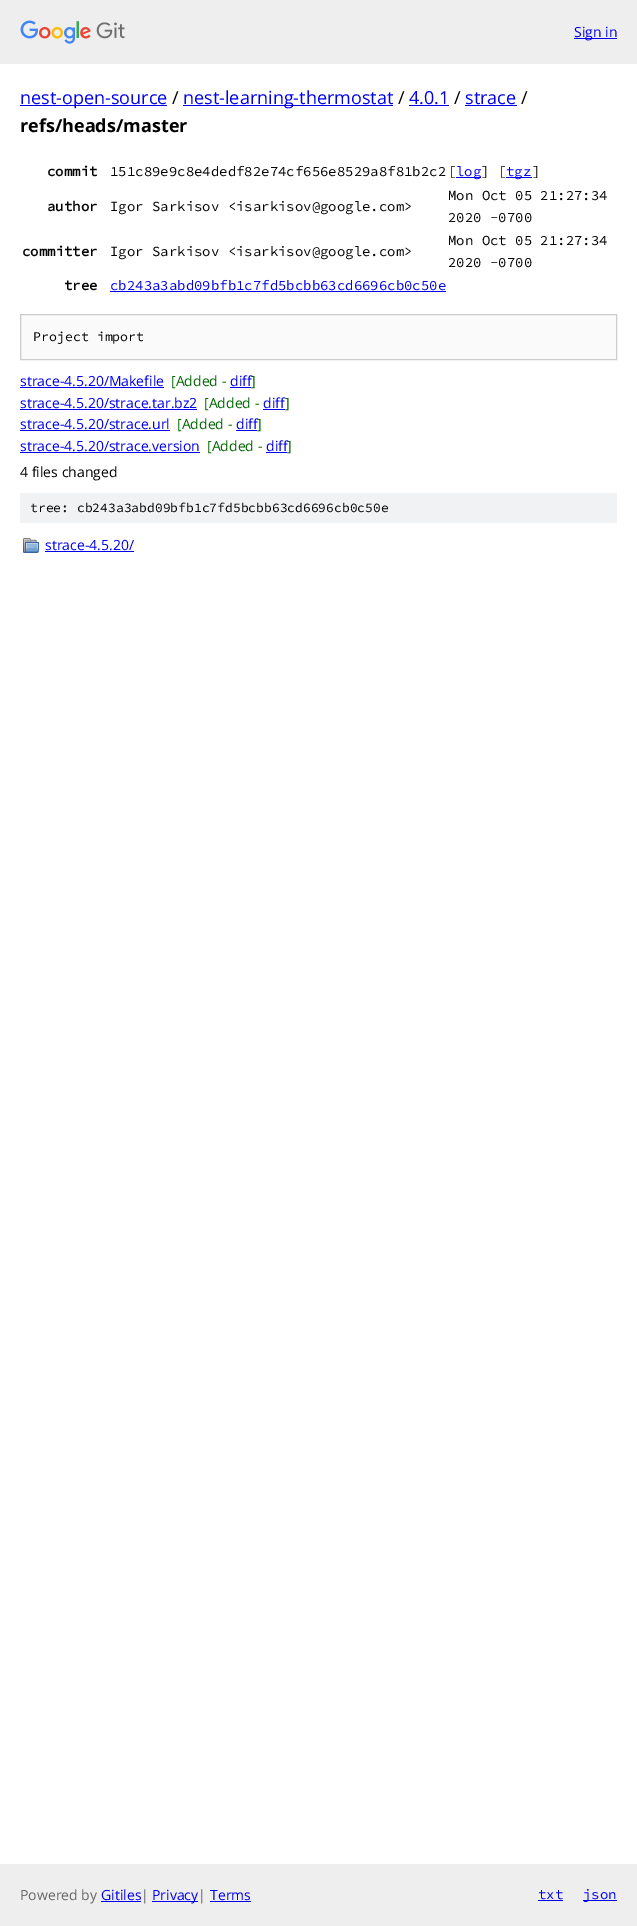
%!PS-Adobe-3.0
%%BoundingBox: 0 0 637 1926
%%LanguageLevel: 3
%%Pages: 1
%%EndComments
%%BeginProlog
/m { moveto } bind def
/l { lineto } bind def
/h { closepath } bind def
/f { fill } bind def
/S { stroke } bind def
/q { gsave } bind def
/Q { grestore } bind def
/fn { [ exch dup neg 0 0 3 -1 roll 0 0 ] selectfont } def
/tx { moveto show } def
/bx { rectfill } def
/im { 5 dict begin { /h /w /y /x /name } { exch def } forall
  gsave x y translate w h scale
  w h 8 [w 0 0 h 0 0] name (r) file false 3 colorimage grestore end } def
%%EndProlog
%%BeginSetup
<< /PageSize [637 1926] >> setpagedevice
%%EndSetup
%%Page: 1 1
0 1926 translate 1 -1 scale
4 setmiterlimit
1 setgray
0 0 637 1926 bx
0.933 setgray
0 0 637 64 bx
(image0.raw) 20 20 105 24 im
0 0 0.933 setrgbcolor
574 38 43 1 bx
/OpenSans-Regular 14 fn
(Sign in) 574 37 tx
20 105 147 1 bx
/OpenSans-Regular 18 fn
(nest-open-source) 20 104 tx
0 setgray
(/) 172 104 tx
0 0 0.933 setrgbcolor
183 105 210 1 bx
(nest-learning-thermostat) 183 104 tx
0 setgray
(/) 398 104 tx
0 0 0.933 setrgbcolor
(4.0.1) 409 104 tx
409 105 40 1 bx
0 setgray
(/) 454 104 tx
0 0 0.933 setrgbcolor
(strace) 465 104 tx
465 105 52 1 bx
0 setgray
(/) 521 104 tx
/OpenSans-Bold 18 fn
(refs/heads/master) 20 132 tx
/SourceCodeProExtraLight-Bold 14 fn
(commit) 47 176 tx
/SourceCodeProExtraLight-ExtraLight 14 fn
(151c89e9c8e4dedf82e74cf656e8529a8f81b2c2) 110 176 tx
([) 448 176 tx
0 0 0.933 setrgbcolor
456 177 25 1 bx
(log) 456 176 tx
0 setgray
(] [) 481 176 tx
0 0 0.933 setrgbcolor
506 177 26 1 bx
(tgz) 506 176 tx
0 setgray
(]) 532 176 tx
/SourceCodeProExtraLight-Bold 14 fn
(author) 47 211 tx
/SourceCodeProExtraLight-ExtraLight 14 fn
(Igor Sarkisov <isarkisov@google.com>) 110 211 tx
(Mon Oct 05 21:27:34) 448 200 tx
(2020 -0700) 448 222 tx
/SourceCodeProExtraLight-Bold 14 fn
(committer) 22 256 tx
/SourceCodeProExtraLight-ExtraLight 14 fn
(Igor Sarkisov <isarkisov@google.com>) 110 256 tx
(Mon Oct 05 21:27:34) 448 245 tx
(2020 -0700) 448 267 tx
/SourceCodeProExtraLight-Bold 14 fn
(tree) 64 290 tx
/SourceCodeProExtraLight-ExtraLight 14 fn
0 0 0.933 setrgbcolor
(cb243a3abd09bfb1c7fd5bcbb63cd6696cb0c50e) 110 290 tx
110 291 336 1 bx
0.98 setgray
20.5 314.5 m 616.5 314.5 l 616.5 359.5 l 20.5 359.5 l h q f Q
0.8 setgray
S
/SourceCodeProExtraLight-ExtraLight 13.25 fn
0 setgray
(Project import) 33 341 tx
/OpenSans-Regular 14 fn
0 0 0.933 setrgbcolor
(strace-4.5.20/Makefile) 20 386 tx
20 387 144 1 bx
0 0.4 0 setrgbcolor
([Added -) 171 386 tx
0 0 0.933 setrgbcolor
(diff) 230 386 tx
0 0.4 0 setrgbcolor
(]) 251 386 tx
0 0 0.933 setrgbcolor
230 387 21 1 bx
(strace-4.5.20/strace.tar.bz2) 20 408 tx
20 409 177 1 bx
0 0.4 0 setrgbcolor
([Added -) 204 408 tx
0 0 0.933 setrgbcolor
(diff) 263 408 tx
0 0.4 0 setrgbcolor
(]) 285 408 tx
0 0 0.933 setrgbcolor
263 409 22 1 bx
(strace-4.5.20/strace.url) 20 429 tx
20 430 150 1 bx
0 0.4 0 setrgbcolor
([Added -) 177 429 tx
0 0 0.933 setrgbcolor
(diff) 236 429 tx
0 0.4 0 setrgbcolor
(]) 257 429 tx
0 0 0.933 setrgbcolor
236 430 21 1 bx
(strace-4.5.20/strace.version) 20 451 tx
20 452 180 1 bx
0 0.4 0 setrgbcolor
([Added -) 207 451 tx
0 0 0.933 setrgbcolor
(diff) 266 451 tx
0 0.4 0 setrgbcolor
(]) 287 451 tx
0 0 0.933 setrgbcolor
266 452 21 1 bx
0 setgray
(4 files changed) 20 477 tx
0.945 0.949 0.953 setrgbcolor
20 493 597 30 bx
/SourceCodeProExtraLight-ExtraLight 13 fn
0 setgray
(tree: cb243a3abd09bfb1c7fd5bcbb63cd6696cb0c50e) 30 512 tx
(image1.raw) 23 538 16 15 im
/OpenSans-Regular 14 fn
0 0 0.933 setrgbcolor
(strace-4.5.20/) 45 550 tx
45 551 89 1 bx
0.933 setgray
0 1864 637 62 bx
0.4 setgray
(Powered by) 20 1900 tx
0 0 0.933 setrgbcolor
(Gitiles) 101 1900 tx
101 1901 40 1 bx
0.4 setgray
(|) 141 1900 tx
0 0 0.933 setrgbcolor
152 1901 46 1 bx
(Privacy) 152 1900 tx
0.4 setgray
(|) 198 1900 tx
0 0 0.933 setrgbcolor
(Terms) 210 1900 tx
210 1901 41 1 bx
/SourceCodeProExtraLight-ExtraLight 14 fn
(txt) 538 1899 tx
538 1900 25 1 bx
583 1900 34 1 bx
(json) 583 1899 tx
showpage
%%EOF
